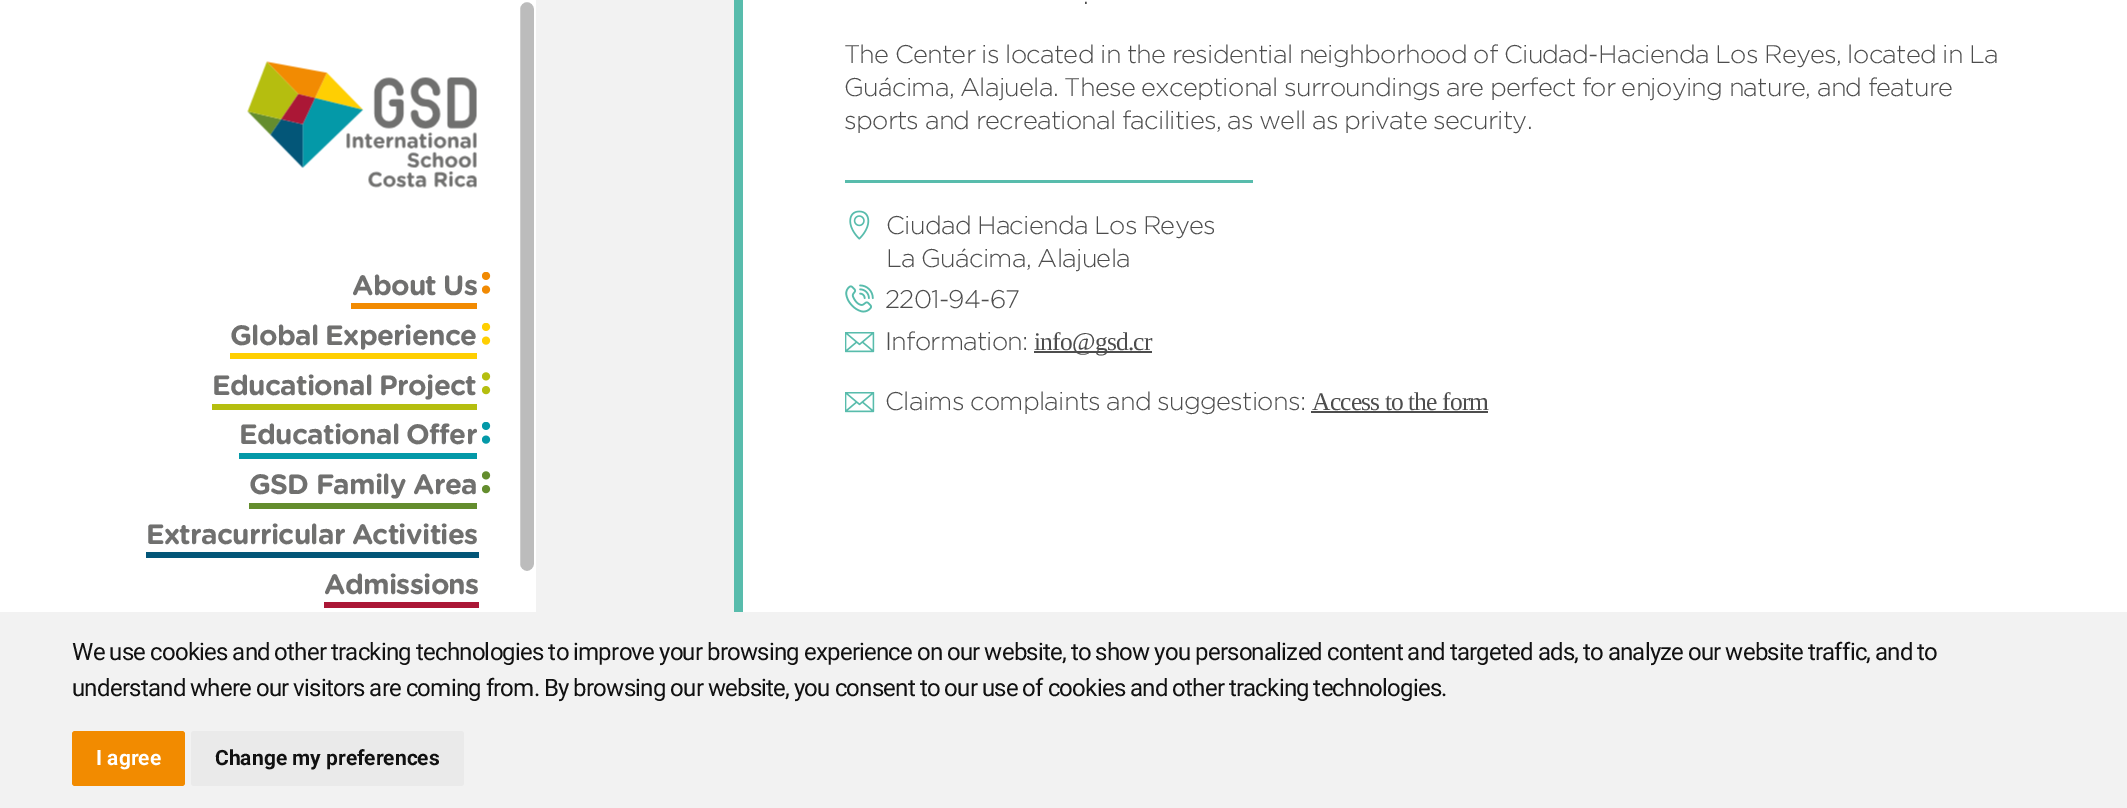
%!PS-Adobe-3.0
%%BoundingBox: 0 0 2127 808
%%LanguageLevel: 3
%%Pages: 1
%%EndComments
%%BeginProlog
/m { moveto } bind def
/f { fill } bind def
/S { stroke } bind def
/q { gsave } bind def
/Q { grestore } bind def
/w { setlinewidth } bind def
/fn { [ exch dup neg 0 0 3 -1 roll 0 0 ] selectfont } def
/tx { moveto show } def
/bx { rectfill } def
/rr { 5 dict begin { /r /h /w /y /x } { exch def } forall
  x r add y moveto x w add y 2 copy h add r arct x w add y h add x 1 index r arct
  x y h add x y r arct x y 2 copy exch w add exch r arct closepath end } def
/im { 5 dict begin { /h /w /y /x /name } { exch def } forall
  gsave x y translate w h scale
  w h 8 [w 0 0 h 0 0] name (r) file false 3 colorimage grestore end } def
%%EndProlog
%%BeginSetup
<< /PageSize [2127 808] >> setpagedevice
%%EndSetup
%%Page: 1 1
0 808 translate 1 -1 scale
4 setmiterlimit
1 setgray
0 0 2127 808 bx
0.737 setgray
519 1 16 571 8 rr q f Q
1 setgray
2 w
S
(image0.raw) 247 61 230 127 im
0.949 0.545 0.008 setrgbcolor
351 303 126 6 bx
/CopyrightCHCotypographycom-Regular 28 fn
0.439 0.439 0.435 setrgbcolor
352 295 m -0.5 0 32 -0.77 0 (About Us) awidthshow
(image1.raw) 482 272 9 22 im
1 0.812 0.008 setrgbcolor
230 353 247 6 bx
0.439 0.439 0.435 setrgbcolor
230 345 m -0.5 0 32 -0.77 0 (Global Experience) awidthshow
(image2.raw) 482 323 9 22 im
0.71 0.745 0.059 setrgbcolor
212 404 265 6 bx
0.439 0.439 0.435 setrgbcolor
212 395 m -0.5 0 32 -0.77 0 (Educational Project) awidthshow
(image3.raw) 482 372 9 23 im
0.016 0.6 0.659 setrgbcolor
239 453 238 6 bx
0.439 0.439 0.435 setrgbcolor
239 444 m -0.5 0 32 -0.77 0 (Educational Offer) awidthshow
(image4.raw) 482 422 9 22 im
0.392 0.553 0.18 setrgbcolor
249 503 228 6 bx
0.439 0.439 0.435 setrgbcolor
249 494 m -0.5 0 32 -0.77 0 (GSD Family Area) awidthshow
(image5.raw) 482 471 9 23 im
0.012 0.337 0.471 setrgbcolor
146 552 333 6 bx
0.439 0.439 0.435 setrgbcolor
146 544 m -0.5 0 32 -0.77 0 (Extracurricular Activities) awidthshow
0.671 0.09 0.212 setrgbcolor
324 602 155 6 bx
0.439 0.439 0.435 setrgbcolor
324 594 m -0.77 0 (Admissions) ashow
0.949 setgray
536 0 198 612 bx
0.345 0.737 0.675 setrgbcolor
734 0 9 612 bx
/CopyrightCHCotypographycom-Light 25.5 fn
0.302 setgray
1083 4 m -0.5 0 32 -0.77 0 (.) awidthshow
844 63 m -0.5 0 32 -0.77 0 (The Center is located in the residential neighborhood of Ciudad-Hacienda Los Reyes, located in La) awidthshow
844 96 m -0.5 0 32 -0.77 0 (Guácima, Alajuela. These exceptional surroundings are perfect for enjoying nature, and feature) awidthshow
844 129 m -0.5 0 32 -0.77 0 (sports and recreational facilities, as well as private security.) awidthshow
0.345 0.737 0.675 setrgbcolor
845 180 408 3 bx
(image6.raw) 849 210 21 30 im
0.302 setgray
886 234 m -0.5 0 32 -0.77 0 (Ciudad Hacienda Los Reyes) awidthshow
886 267 m -0.5 0 32 -0.77 0 (La Guácima, Alajuela) awidthshow
(image7.raw) 845 284 29 29 im
885 308 m -0.77 0 (2201-94-67) ashow
(image8.raw) 845 332 30 21 im
885 350 m -0.77 0 (Information:) ashow
1034 351 118 2 bx
/LiberationSerif-Regular 25.5 fn
1034 350 m -0.77 0 (info@gsd.cr) ashow
(image8.raw) 845 392 30 21 im
/CopyrightCHCotypographycom-Light 25.5 fn
885 410 m -0.5 0 32 -0.77 0 (Claims complaints and suggestions:) awidthshow
/LiberationSerif-Regular 25.5 fn
1312 410 m -0.5 0 32 -0.77 0 (Access to the form) awidthshow
1311 411 177 2 bx
0.949 setgray
0 612 2127 196 bx
/Roboto-Regular 24 fn
0.067 setgray
72 660 m -0.5 0 32 -0.77 0 (We use cookies and other tracking technologies to improve your browsing experience on our website, to show you personalized content and targeted ads, to analyze our website traffic, and to) awidthshow
72 696 m -0.5 0 32 -0.77 0 (understand where our visitors are coming from. By browsing our website, you consent to our use of cookies and other tracking technologies.) awidthshow
0.949 0.545 0 setrgbcolor
72 731 113 55 3 rr f
/Roboto-Bold 21 fn
1 setgray
(I agree) 96 765 tx
0.918 setgray
191 731 273 55 3 rr f
0.067 setgray
(Change my preferences) 215 765 tx
showpage
%%EOF
